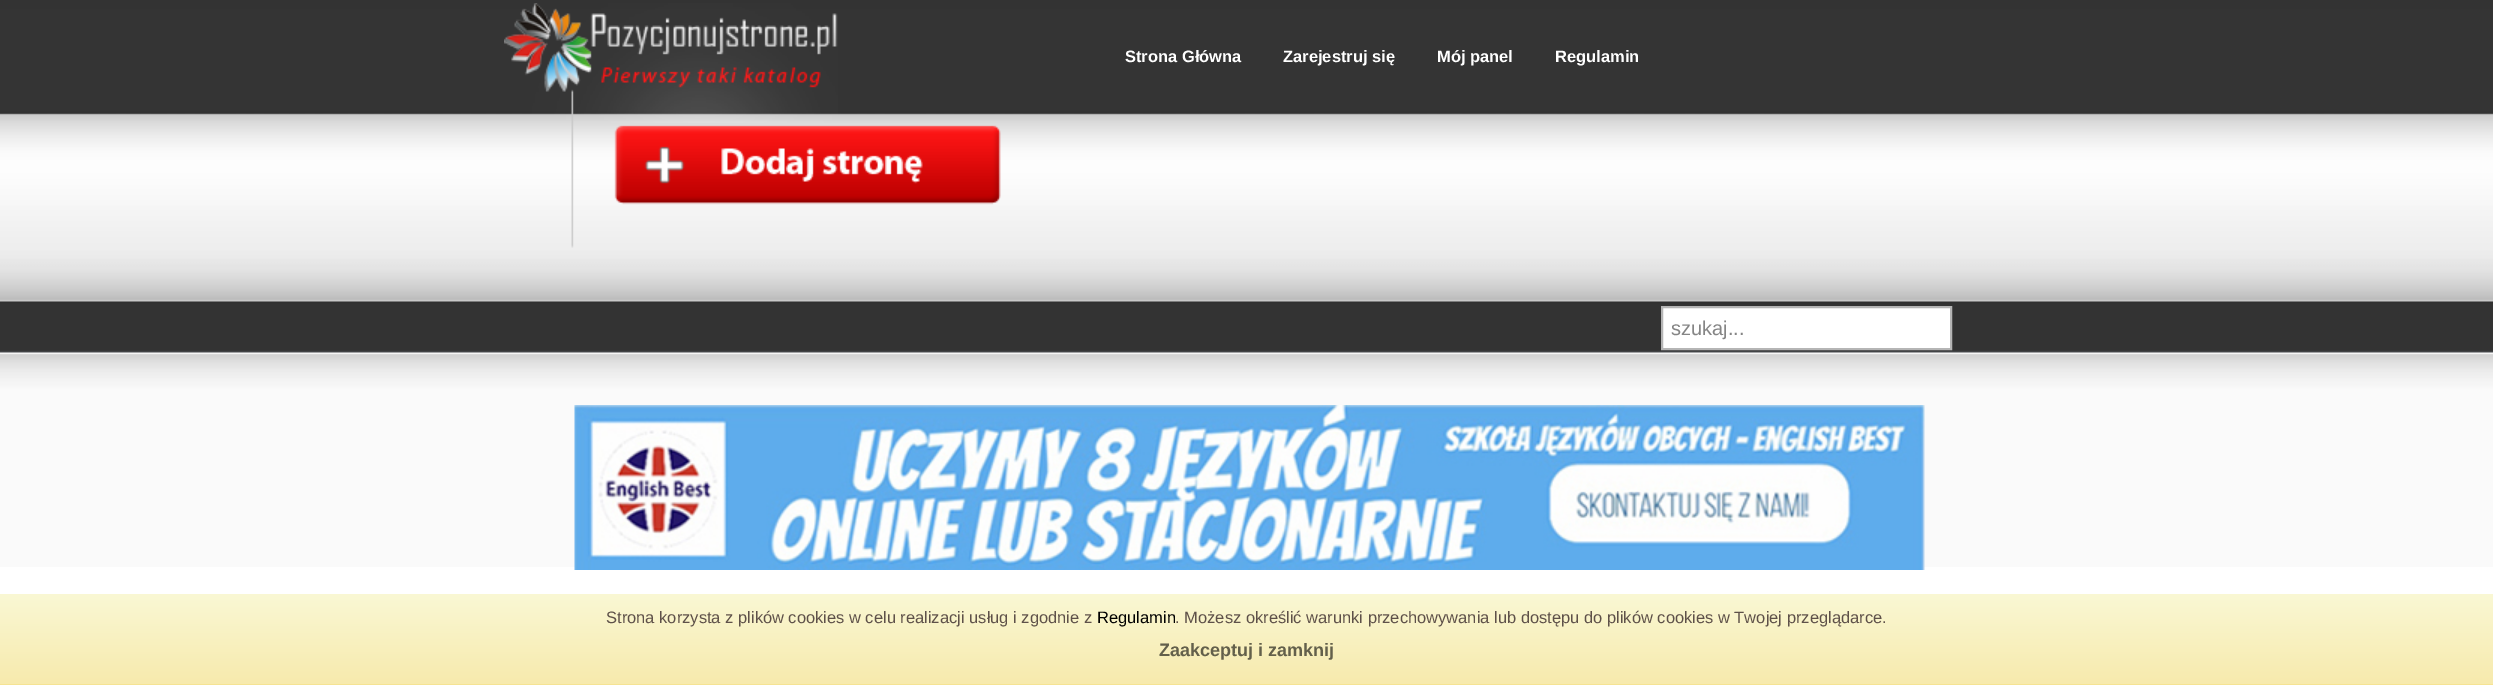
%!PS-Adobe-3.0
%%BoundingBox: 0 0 2493 685
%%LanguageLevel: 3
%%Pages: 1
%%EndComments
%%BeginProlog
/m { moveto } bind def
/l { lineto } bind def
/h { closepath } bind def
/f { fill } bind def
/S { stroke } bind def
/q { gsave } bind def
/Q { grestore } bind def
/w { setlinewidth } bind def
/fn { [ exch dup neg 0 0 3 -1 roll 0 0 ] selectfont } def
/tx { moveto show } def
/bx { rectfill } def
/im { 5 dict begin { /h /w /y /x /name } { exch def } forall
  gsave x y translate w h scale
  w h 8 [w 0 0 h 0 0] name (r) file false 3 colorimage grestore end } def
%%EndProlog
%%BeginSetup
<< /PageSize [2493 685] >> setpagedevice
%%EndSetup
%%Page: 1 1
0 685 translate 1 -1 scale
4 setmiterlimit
1 setgray
0 0 2493 685 bx
(image0.raw) 0 0 2493 567 im
/LiberationSans-Bold 16.5 fn
(Strona Główna) 1125 62 tx
(Zarejestruj się) 1283 62 tx
(Mój panel) 1437 62 tx
(Regulamin) 1555 62 tx
(image2.raw) 504 3 334 120 im
(image1.raw) 571 89 430 159 im
1662 307 m 1951 307 l 1951 349 l 1662 349 l h q f Q
0.71 setgray
2 w
S
/LiberationSans-Regular 20 fn
0.522 setgray
(szukaj...) 1671 335 tx
(image3.raw) 574 405 1351 165 im
q 0 594 m 2493 594 l 2493 684 l 0 684 l h clip newpath
<< /ShadingType 2 /ColorSpace /DeviceRGB /Coords [1247 594 1247 684] /Extend [true true] /Function << /FunctionType 2 /Domain [0 1] /C0 [0.98 0.973 0.831] /C1 [0.969 0.918 0.678] /N 1 >> >> shfill Q
0.961 0.89 0.576 setrgbcolor
0 684 2493 1 bx
/LiberationSans-Regular 16.5 fn
0.369 0.318 0.286 setrgbcolor
(Strona korzysta z plików cookies w celu realizacji usług i zgodnie z) 606 623 tx
0 setgray
(Regulamin) 1097 623 tx
0.369 0.318 0.286 setrgbcolor
(. Możesz określić warunki przechowywania lub dostępu do plików cookies w Twojej przeglądarce.) 1175 623 tx
/LiberationSans-Bold 18 fn
0.388 0.376 0.294 setrgbcolor
(Zaakceptuj i zamknij) 1159 656 tx
showpage
%%EOF
